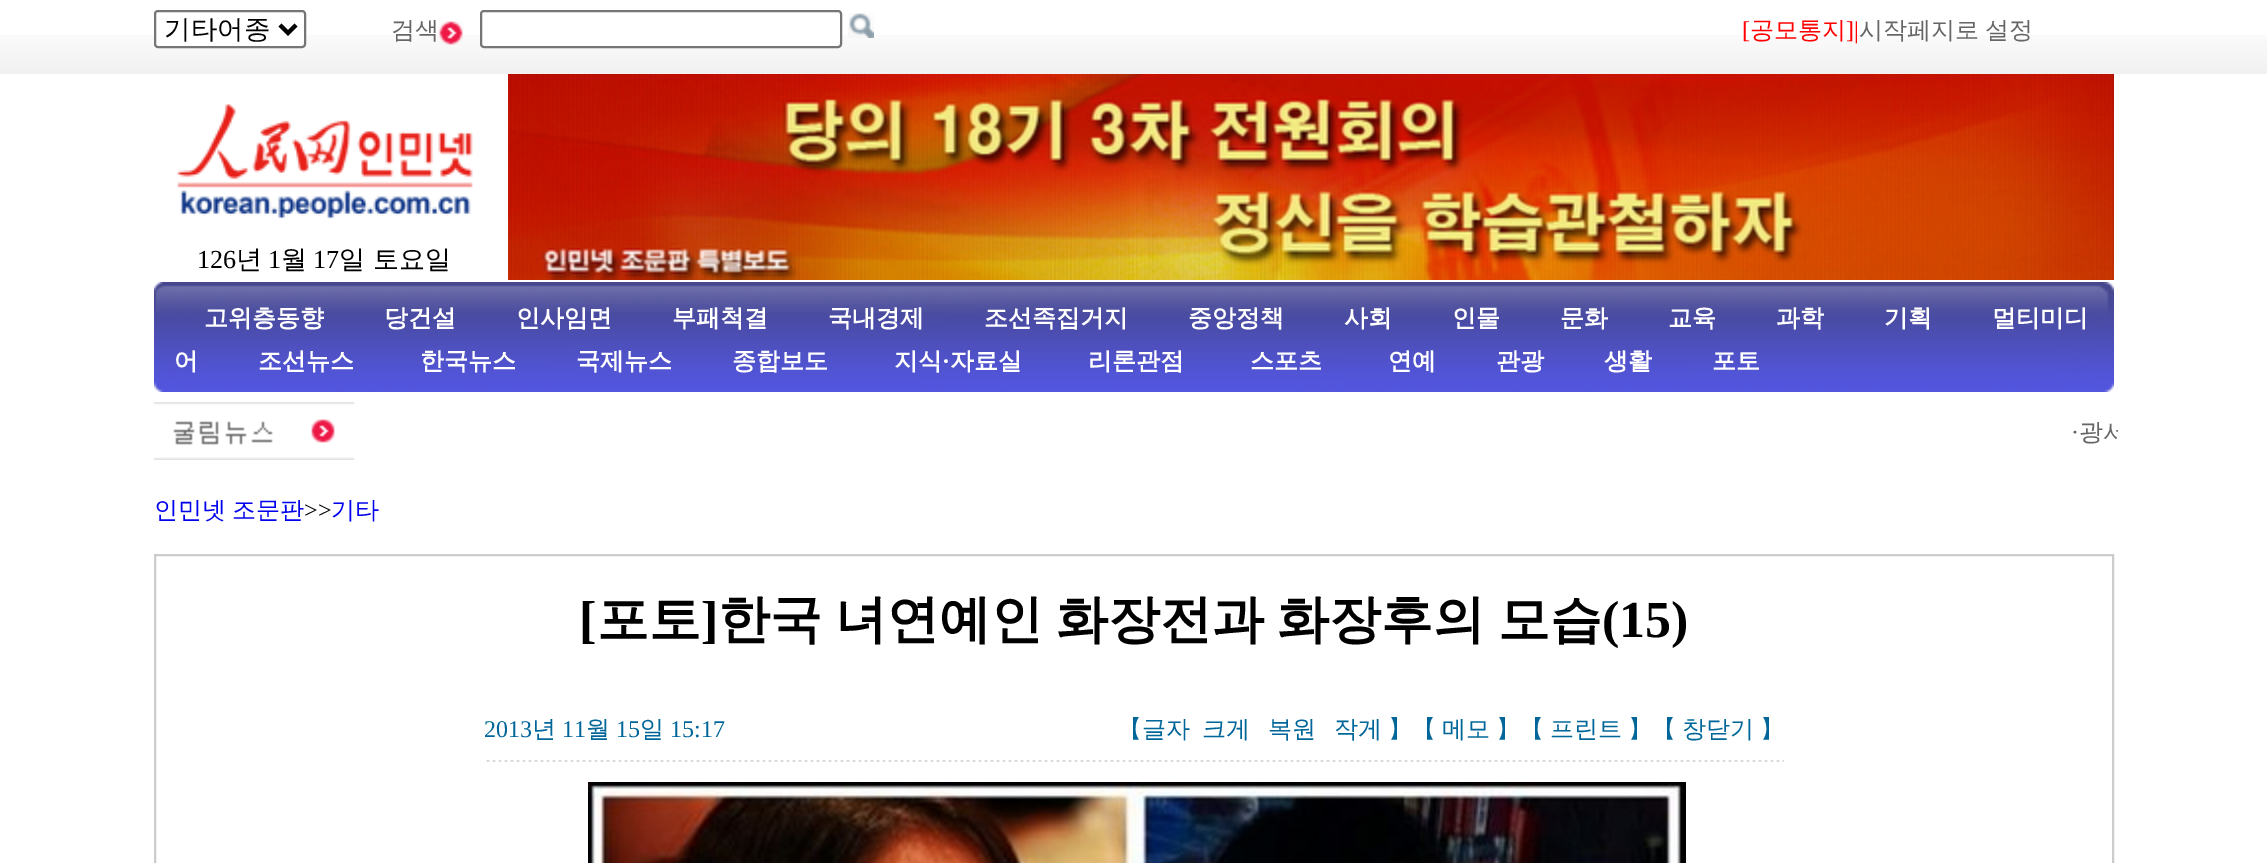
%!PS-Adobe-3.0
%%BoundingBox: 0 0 2267 863
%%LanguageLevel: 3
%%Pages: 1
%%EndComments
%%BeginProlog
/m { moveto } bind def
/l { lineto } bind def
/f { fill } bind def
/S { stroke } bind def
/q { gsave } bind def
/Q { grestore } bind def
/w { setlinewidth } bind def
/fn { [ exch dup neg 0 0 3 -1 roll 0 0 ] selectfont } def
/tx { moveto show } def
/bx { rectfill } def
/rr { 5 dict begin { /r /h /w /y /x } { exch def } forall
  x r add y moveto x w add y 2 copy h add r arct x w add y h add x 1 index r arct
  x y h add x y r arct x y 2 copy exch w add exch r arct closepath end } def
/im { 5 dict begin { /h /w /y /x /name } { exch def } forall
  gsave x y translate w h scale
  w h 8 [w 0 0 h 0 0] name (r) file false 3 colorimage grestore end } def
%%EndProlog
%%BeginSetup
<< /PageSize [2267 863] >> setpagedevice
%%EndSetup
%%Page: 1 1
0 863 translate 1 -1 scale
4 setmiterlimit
1 setgray
0 0 2267 863 bx
(image0.raw) 0 35 2267 39 im
155 11 150 36 3 rr q f Q
0.463 setgray
2 w
S
0 setgray
4 w
280 25 m 288 33 l 296 25 l S
/WenQuanYiZenHei-Medium 26.5 fn
(기타어종) 164 38 tx
/WenQuanYiZenHei-Medium 24 fn
0.4 setgray
(검색) 391 38 tx
(image1.raw) 438 21 26 24 im
1 setgray
481 11 360 36 3 rr q f Q
0.463 setgray
2 w
S
(image2.raw) 848 13 26 25 im
/LiberationSerif-Regular 24 fn
1 0 0 setrgbcolor
([) 1742 38 tx
/WenQuanYiZenHei-Medium 24 fn
(공모통지) 1750 38 tx
/LiberationSerif-Regular 24 fn
(]|) 1846 38 tx
/WenQuanYiZenHei-Medium 24 fn
0.4 setgray
1859 38 m -1 0 32 (시작페지로 설정) widthshow
(image3.raw) 177 104 296 115 im
/LiberationSerif-Regular 26 fn
0 setgray
(126) 197 268 tx
/WenQuanYiZenHei-Medium 26 fn
(년) 236 268 tx
/LiberationSerif-Regular 26 fn
(1) 268 268 tx
/WenQuanYiZenHei-Medium 26 fn
(월) 281 268 tx
/LiberationSerif-Regular 26 fn
(17) 313 268 tx
/WenQuanYiZenHei-Medium 26 fn
(일 토요일) 339 268 tx
(image4.raw) 508 74 1606 206 im
(image5.raw) 154 282 1960 110 im
/WenQuanYiZenHei-Bold 24 fn
1 setgray
(고위층동향) 204 326 tx
(당건설) 384 326 tx
(인사임면) 516 326 tx
(부패척결) 672 326 tx
(국내경제) 828 326 tx
(조선족집거지) 984 326 tx
(중앙정책) 1188 326 tx
(사회) 1344 326 tx
(인물) 1452 326 tx
(문화) 1560 326 tx
(교육) 1668 326 tx
(과학) 1776 326 tx
(기획) 1884 326 tx
(멀티미디) 1992 326 tx
(어) 174 369 tx
(조선뉴스) 258 369 tx
(한국뉴스) 420 369 tx
(국제뉴스) 576 369 tx
(종합보도) 732 369 tx
(지식) 894 369 tx
/LiberationSerif-Bold 24 fn
(·) 942 369 tx
/WenQuanYiZenHei-Bold 24 fn
(자료실) 950 369 tx
(리론관점) 1088 369 tx
(스포츠) 1250 369 tx
(연예) 1388 369 tx
(관광) 1496 369 tx
(생활) 1604 369 tx
(포토) 1712 369 tx
(image6.raw) 153 402 202 58 im
/LiberationSerif-Regular 24 fn
0.4 setgray
(·) 2071 440 tx
q
358 412 1760 58 rectclip
/WenQuanYiZenHei-Medium 24 fn
2079 440 m -1 0 32 (광서) widthshow
Q
/WenQuanYiZenHei-Medium 24 fn
0 0 0.933 setrgbcolor
154 518 m -1 0 32 (인민넷 조문판) widthshow
/LiberationSerif-Regular 24 fn
0 setgray
(>>) 304 518 tx
/WenQuanYiZenHei-Medium 24 fn
0 0 0.933 setrgbcolor
(기타) 331 518 tx
0.8 setgray
155 555 1958 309 rectstroke
/LiberationSerif-Bold 52 fn
0 setgray
([) 579 637 tx
/WenQuanYiZenHei-Bold 52 fn
(포토) 597 637 tx
/LiberationSerif-Bold 52 fn
(]) 701 637 tx
/WenQuanYiZenHei-Bold 52 fn
718 637 m -2.5 0 32 (한국 녀연예인 화장전과 화장후의 모습) widthshow
/LiberationSerif-Bold 52 fn
(\(15\)) 1602 637 tx
(image7.raw) 486 760 1298 2 im
/LiberationSerif-Regular 24 fn
0 0.4 0.6 setrgbcolor
(2013) 484 737 tx
/WenQuanYiZenHei-Medium 24 fn
(년) 532 737 tx
/LiberationSerif-Regular 24 fn
(11) 562 737 tx
/WenQuanYiZenHei-Medium 24 fn
(월) 586 737 tx
/LiberationSerif-Regular 24 fn
(15) 616 737 tx
/WenQuanYiZenHei-Medium 24 fn
(일) 640 737 tx
/LiberationSerif-Regular 24 fn
(15:17) 670 737 tx
/WenQuanYiZenHei-Medium 24 fn
(【글자) 1118 737 tx
(크게) 1202 737 tx
(복원) 1268 737 tx
(작게) 1334 737 tx
(】【) 1388 737 tx
(메모) 1442 737 tx
(】【) 1496 737 tx
(프린트) 1550 737 tx
(】【) 1628 737 tx
(창닫기) 1682 737 tx
(】) 1760 737 tx
(image8.raw) 588 782 1098 81 im
showpage
%%EOF
